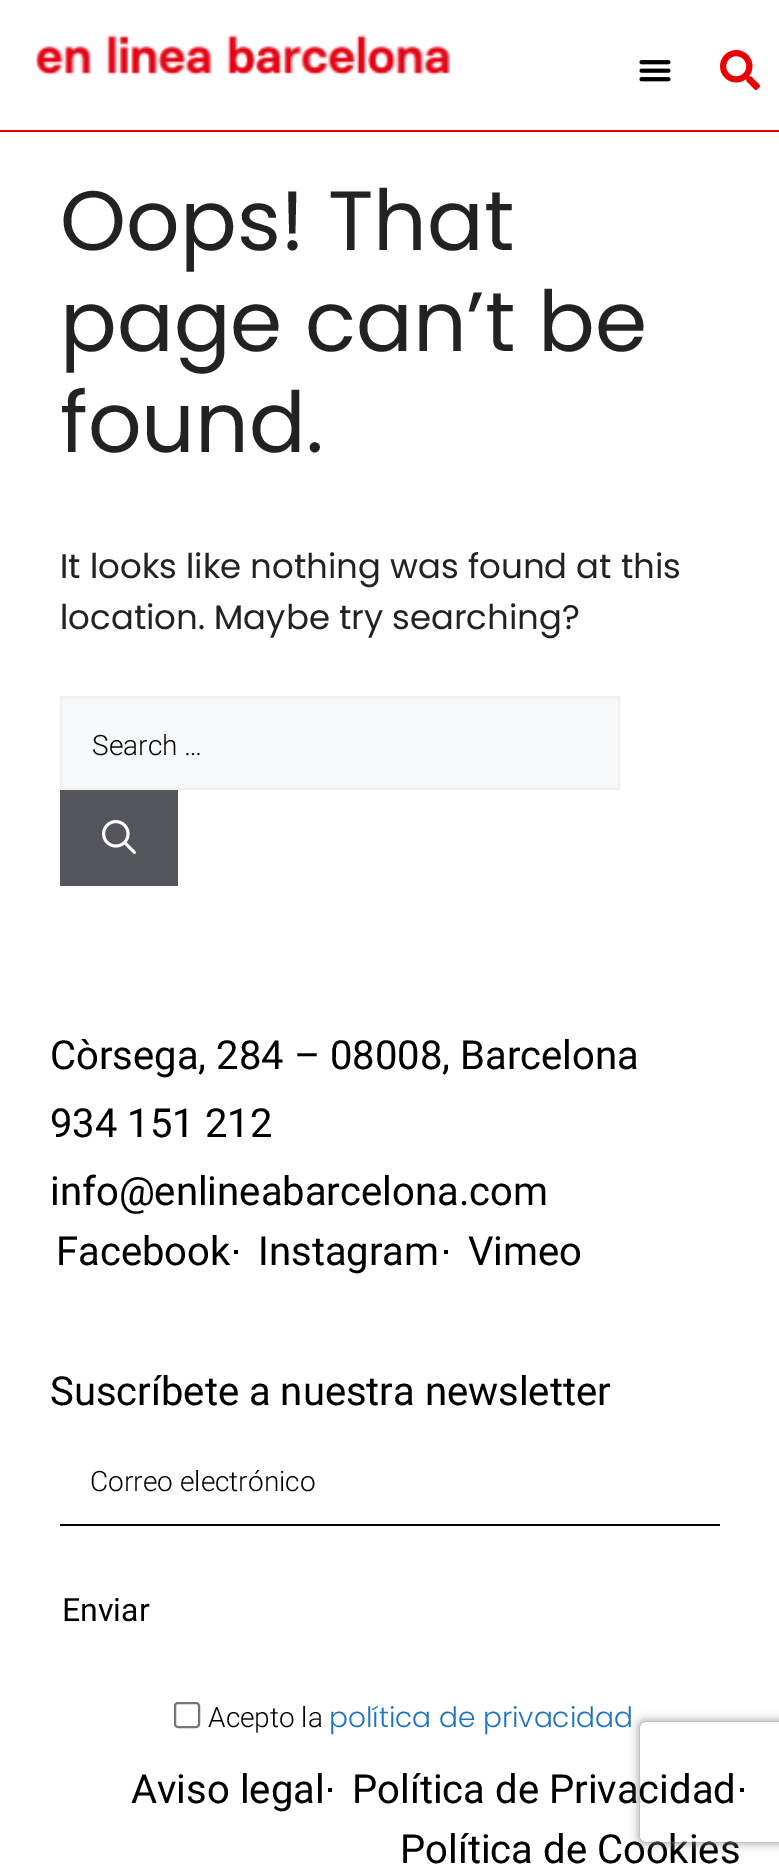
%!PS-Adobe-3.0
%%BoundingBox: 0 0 779 1869
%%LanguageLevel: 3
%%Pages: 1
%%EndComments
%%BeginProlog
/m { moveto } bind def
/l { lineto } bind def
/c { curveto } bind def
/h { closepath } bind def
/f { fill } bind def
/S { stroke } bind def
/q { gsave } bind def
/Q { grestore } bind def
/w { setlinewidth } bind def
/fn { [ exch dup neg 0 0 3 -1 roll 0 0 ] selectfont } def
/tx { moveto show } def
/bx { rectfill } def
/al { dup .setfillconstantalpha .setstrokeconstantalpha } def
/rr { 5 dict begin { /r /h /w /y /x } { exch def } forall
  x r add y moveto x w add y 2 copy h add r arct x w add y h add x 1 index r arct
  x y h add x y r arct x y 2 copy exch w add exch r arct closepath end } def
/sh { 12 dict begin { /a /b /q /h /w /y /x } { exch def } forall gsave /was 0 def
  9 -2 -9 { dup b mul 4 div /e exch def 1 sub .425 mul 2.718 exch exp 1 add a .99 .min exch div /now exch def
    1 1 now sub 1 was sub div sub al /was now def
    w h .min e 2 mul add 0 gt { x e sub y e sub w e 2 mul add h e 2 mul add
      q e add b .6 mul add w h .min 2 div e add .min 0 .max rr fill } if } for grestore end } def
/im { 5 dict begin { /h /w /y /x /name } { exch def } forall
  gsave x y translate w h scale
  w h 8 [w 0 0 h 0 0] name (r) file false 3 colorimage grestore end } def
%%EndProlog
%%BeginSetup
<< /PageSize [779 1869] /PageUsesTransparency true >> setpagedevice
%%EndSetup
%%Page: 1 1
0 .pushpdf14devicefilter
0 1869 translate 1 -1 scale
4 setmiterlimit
1 setgray
0 0 779 1869 bx
0.918 0 0 setrgbcolor
0 130 779 2 bx
(image0.raw) 35 34 415 42 im
(image1.raw) 639 60 32 22 im
(image2.raw) 720 50 40 40 im
/Poppins-Regular 84 fn
0.133 setgray
(Oops! That) 60 250 tx
(page can’t be) 60 351 tx
(found.) 60 452 tx
/Poppins-Regular 34 fn
(It looks like nothing was found at this) 60 578 tx
(location. Maybe try searching?) 60 629 tx
0.969 0.973 0.976 setrgbcolor
61 697 m 619 697 l 619 789 l 61 789 l h q f Q
0.941 setgray
2 w
S
/Roboto-Light 28 fn
0 setgray
(Search …) 92 755 tx
0.333 0.333 0.369 setrgbcolor
60 790 118 96 bx
(image3.raw) 102 820 34 34 im
/Roboto-Regular 40 fn
0 setgray
(Còrsega, 284 – 08008, Barcelona) 50 1069 tx
(934 151 212) 50 1137 tx
(info@enlineabarcelona.com) 50 1205 tx
(Facebook) 56 1265 tx
234 1250 4 4 bx
(Instagram) 258 1265 tx
444 1250 4 4 bx
(Vimeo) 468 1265 tx
(Suscríbete a nuestra newsletter) 50 1405 tx
60 1524 660 2 bx
/Roboto-Light 28 fn
(Correo electrónico) 90 1491 tx
/Roboto-Regular 32 fn
(Enviar) 62 1621 tx
0.463 setgray
175 1703 24 24 3 rr S
/Roboto-Light 28 fn
0 setgray
(Acepto la) 208 1727 tx
/Poppins-Light 28 fn
0.118 0.451 0.745 setrgbcolor
(política de privacidad) 329 1727 tx
/Roboto-Regular 40 fn
0 setgray
(Aviso legal) 131 1803 tx
328 1788 4 4 bx
(Política de Privacidad) 352 1803 tx
740 1788 4 4 bx
(Política de Cookies) 400 1863 tx
q
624 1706 m 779 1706 l 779 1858 l 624 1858 l h 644 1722 m 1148 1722 l 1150 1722 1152 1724 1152 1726 c 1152 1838 l 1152 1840 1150 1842 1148 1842 c 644 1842 l 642 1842 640 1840 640 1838 c 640 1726 l 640 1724 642 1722 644 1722 c h eoclip newpath
0.502 setgray
640 1722 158 120 4 5 1 sh
Q
.poppdf14devicefilter showpage
%%EOF
